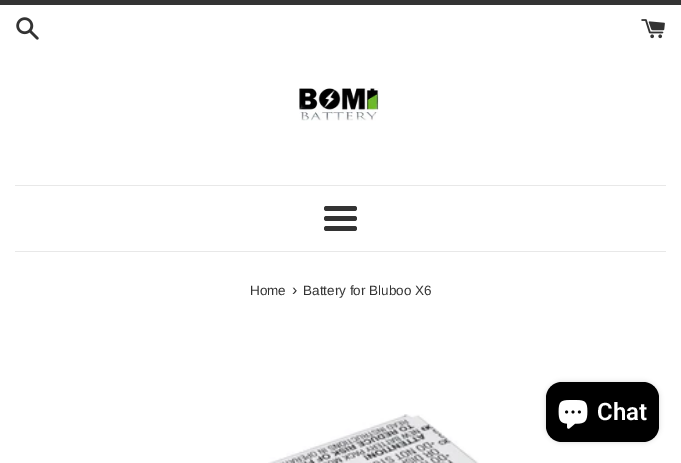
%!PS-Adobe-3.0
%%BoundingBox: 0 0 681 463
%%LanguageLevel: 3
%%Pages: 1
%%EndComments
%%BeginProlog
/f { fill } bind def
/fn { [ exch dup neg 0 0 3 -1 roll 0 0 ] selectfont } def
/tx { moveto show } def
/bx { rectfill } def
/al { dup .setfillconstantalpha .setstrokeconstantalpha } def
/rr { 5 dict begin { /r /h /w /y /x } { exch def } forall
  x r add y moveto x w add y 2 copy h add r arct x w add y h add x 1 index r arct
  x y h add x y r arct x y 2 copy exch w add exch r arct closepath end } def
/sh { 12 dict begin { /a /b /q /h /w /y /x } { exch def } forall gsave /was 0 def
  9 -2 -9 { dup b mul 4 div /e exch def 1 sub .425 mul 2.718 exch exp 1 add a .99 .min exch div /now exch def
    1 1 now sub 1 was sub div sub al /was now def
    w h .min e 2 mul add 0 gt { x e sub y e sub w e 2 mul add h e 2 mul add
      q e add b .6 mul add w h .min 2 div e add .min 0 .max rr fill } if } for grestore end } def
/im { 5 dict begin { /h /w /y /x /name } { exch def } forall
  gsave x y translate w h scale
  w h 8 [w 0 0 h 0 0] name (r) file false 3 colorimage grestore end } def
%%EndProlog
%%BeginSetup
<< /PageSize [681 463] /PageUsesTransparency true >> setpagedevice
%%EndSetup
%%Page: 1 1
0 .pushpdf14devicefilter
0 463 translate 1 -1 scale
4 setmiterlimit
1 setgray
0 0 681 463 bx
0.2 setgray
0 0 681 5 bx
(image0.raw) 16 17 23 23 im
(image1.raw) 641 19 24 20 im
(image2.raw) 299 88 80 33 im
0.91 setgray
15 185 651 1 bx
0.2 setgray
324 206 33 5 2.5 rr f
324 216 33 5 2.5 rr f
324 226 33 5 2.5 rr f
0.91 setgray
15 251 651 1 bx
/LiberationSans-Regular 13.5 fn
0.2 setgray
(Home) 250 295 tx
/LiberationSans-Regular 16 fn
(›) 292 295 tx
/LiberationSans-Regular 13.5 fn
(Battery for Bluboo X6) 303 295 tx
(image3.raw) 268 414 211 49 im
0 setgray
546 382 113 60 16 2.5 0.15 sh
546 382 113 60 16 rr f
(image4.raw) 558 400 30 29 im
/Roboto-SemiBold 24 fn
1 setgray
(Chat) 597 420 tx
.poppdf14devicefilter showpage
%%EOF
